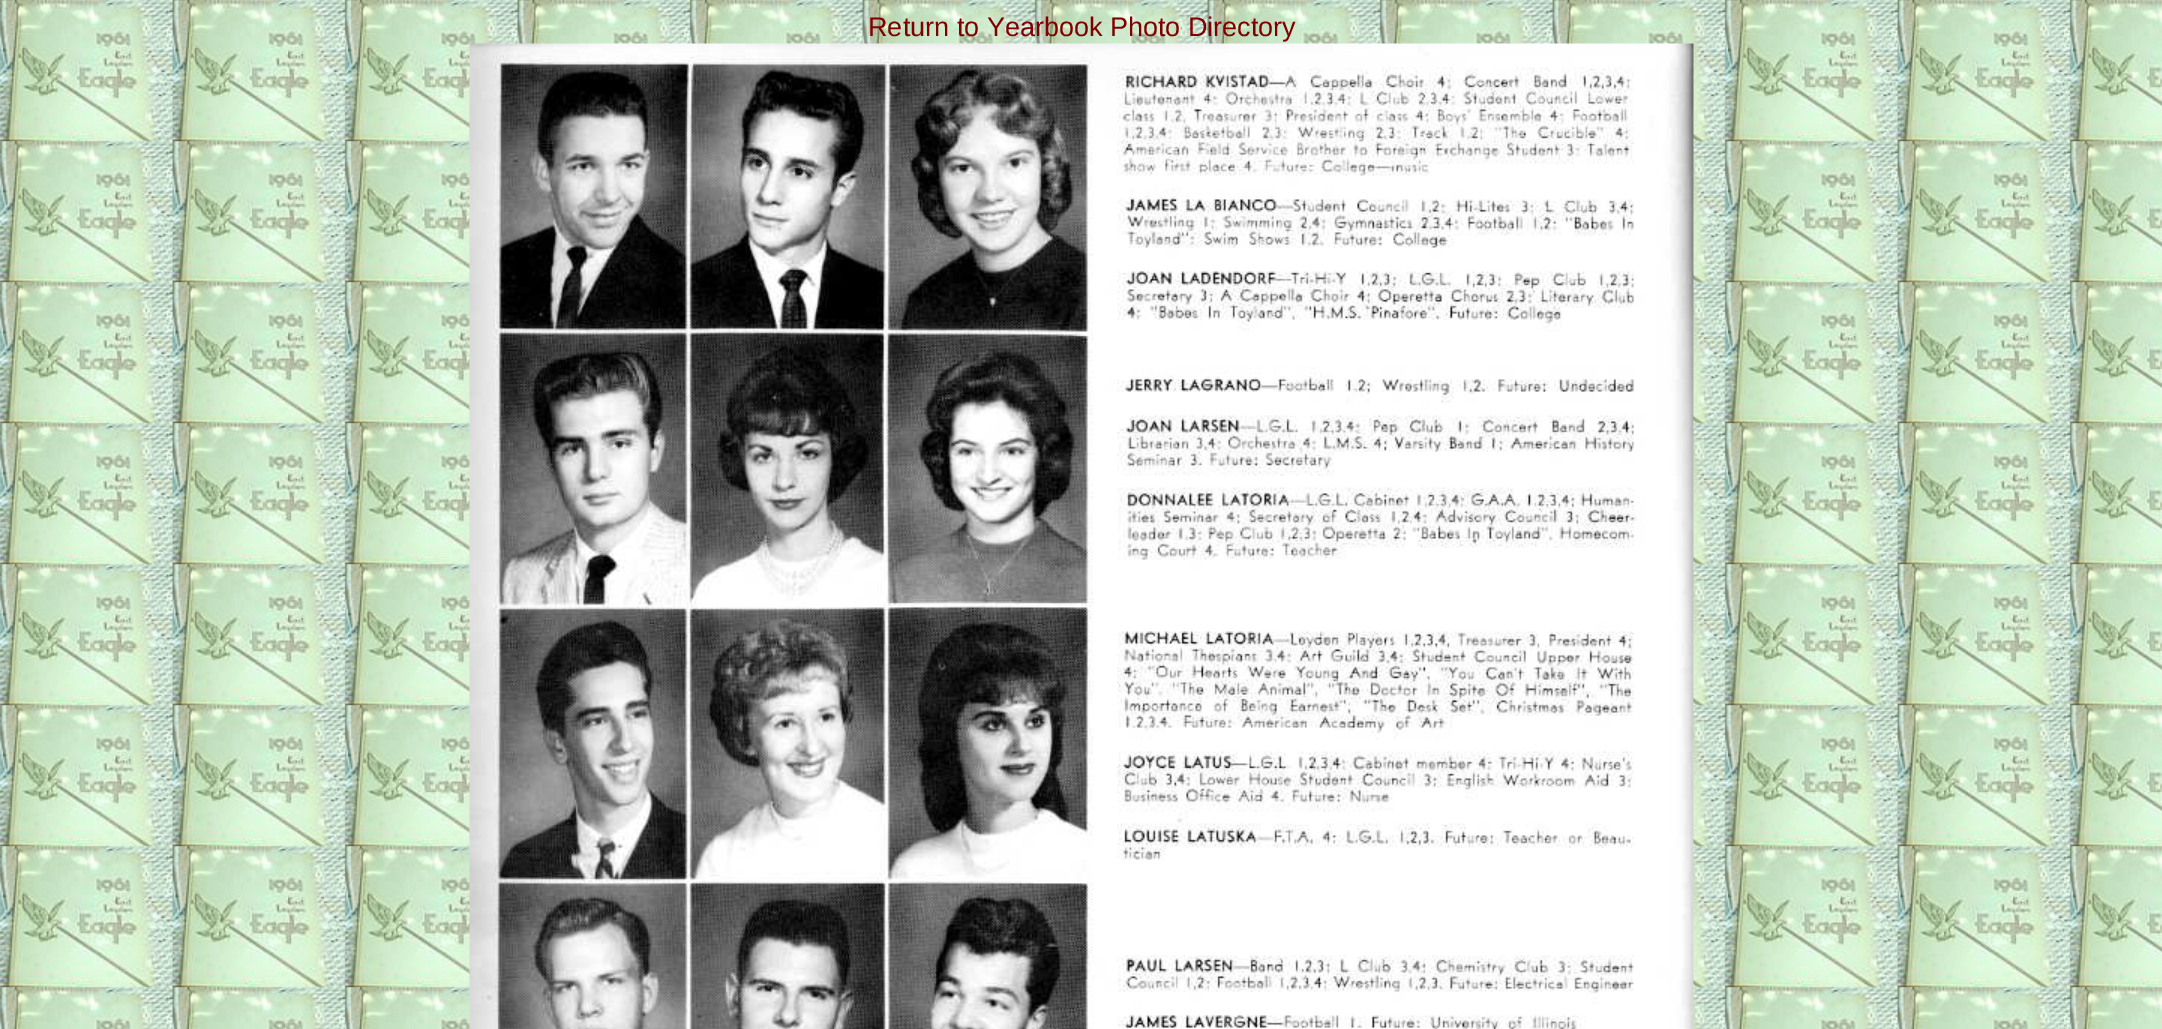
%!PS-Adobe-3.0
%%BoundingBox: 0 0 2162 1029
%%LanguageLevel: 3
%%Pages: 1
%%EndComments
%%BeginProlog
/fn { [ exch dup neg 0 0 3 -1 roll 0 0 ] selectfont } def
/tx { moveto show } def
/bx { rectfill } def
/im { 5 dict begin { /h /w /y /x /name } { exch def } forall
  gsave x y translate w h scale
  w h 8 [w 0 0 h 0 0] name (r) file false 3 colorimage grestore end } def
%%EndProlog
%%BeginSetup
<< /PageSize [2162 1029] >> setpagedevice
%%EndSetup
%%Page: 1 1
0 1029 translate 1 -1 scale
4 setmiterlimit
1 setgray
0 0 2162 1029 bx
(image0.raw) 0 0 2162 1029 im
/LiberationSans-Regular 27 fn
0.502 0 0 setrgbcolor
(Return to Yearbook Photo Directory) 868 36 tx
(image1.raw) 469 43 1225 986 im
showpage
%%EOF
